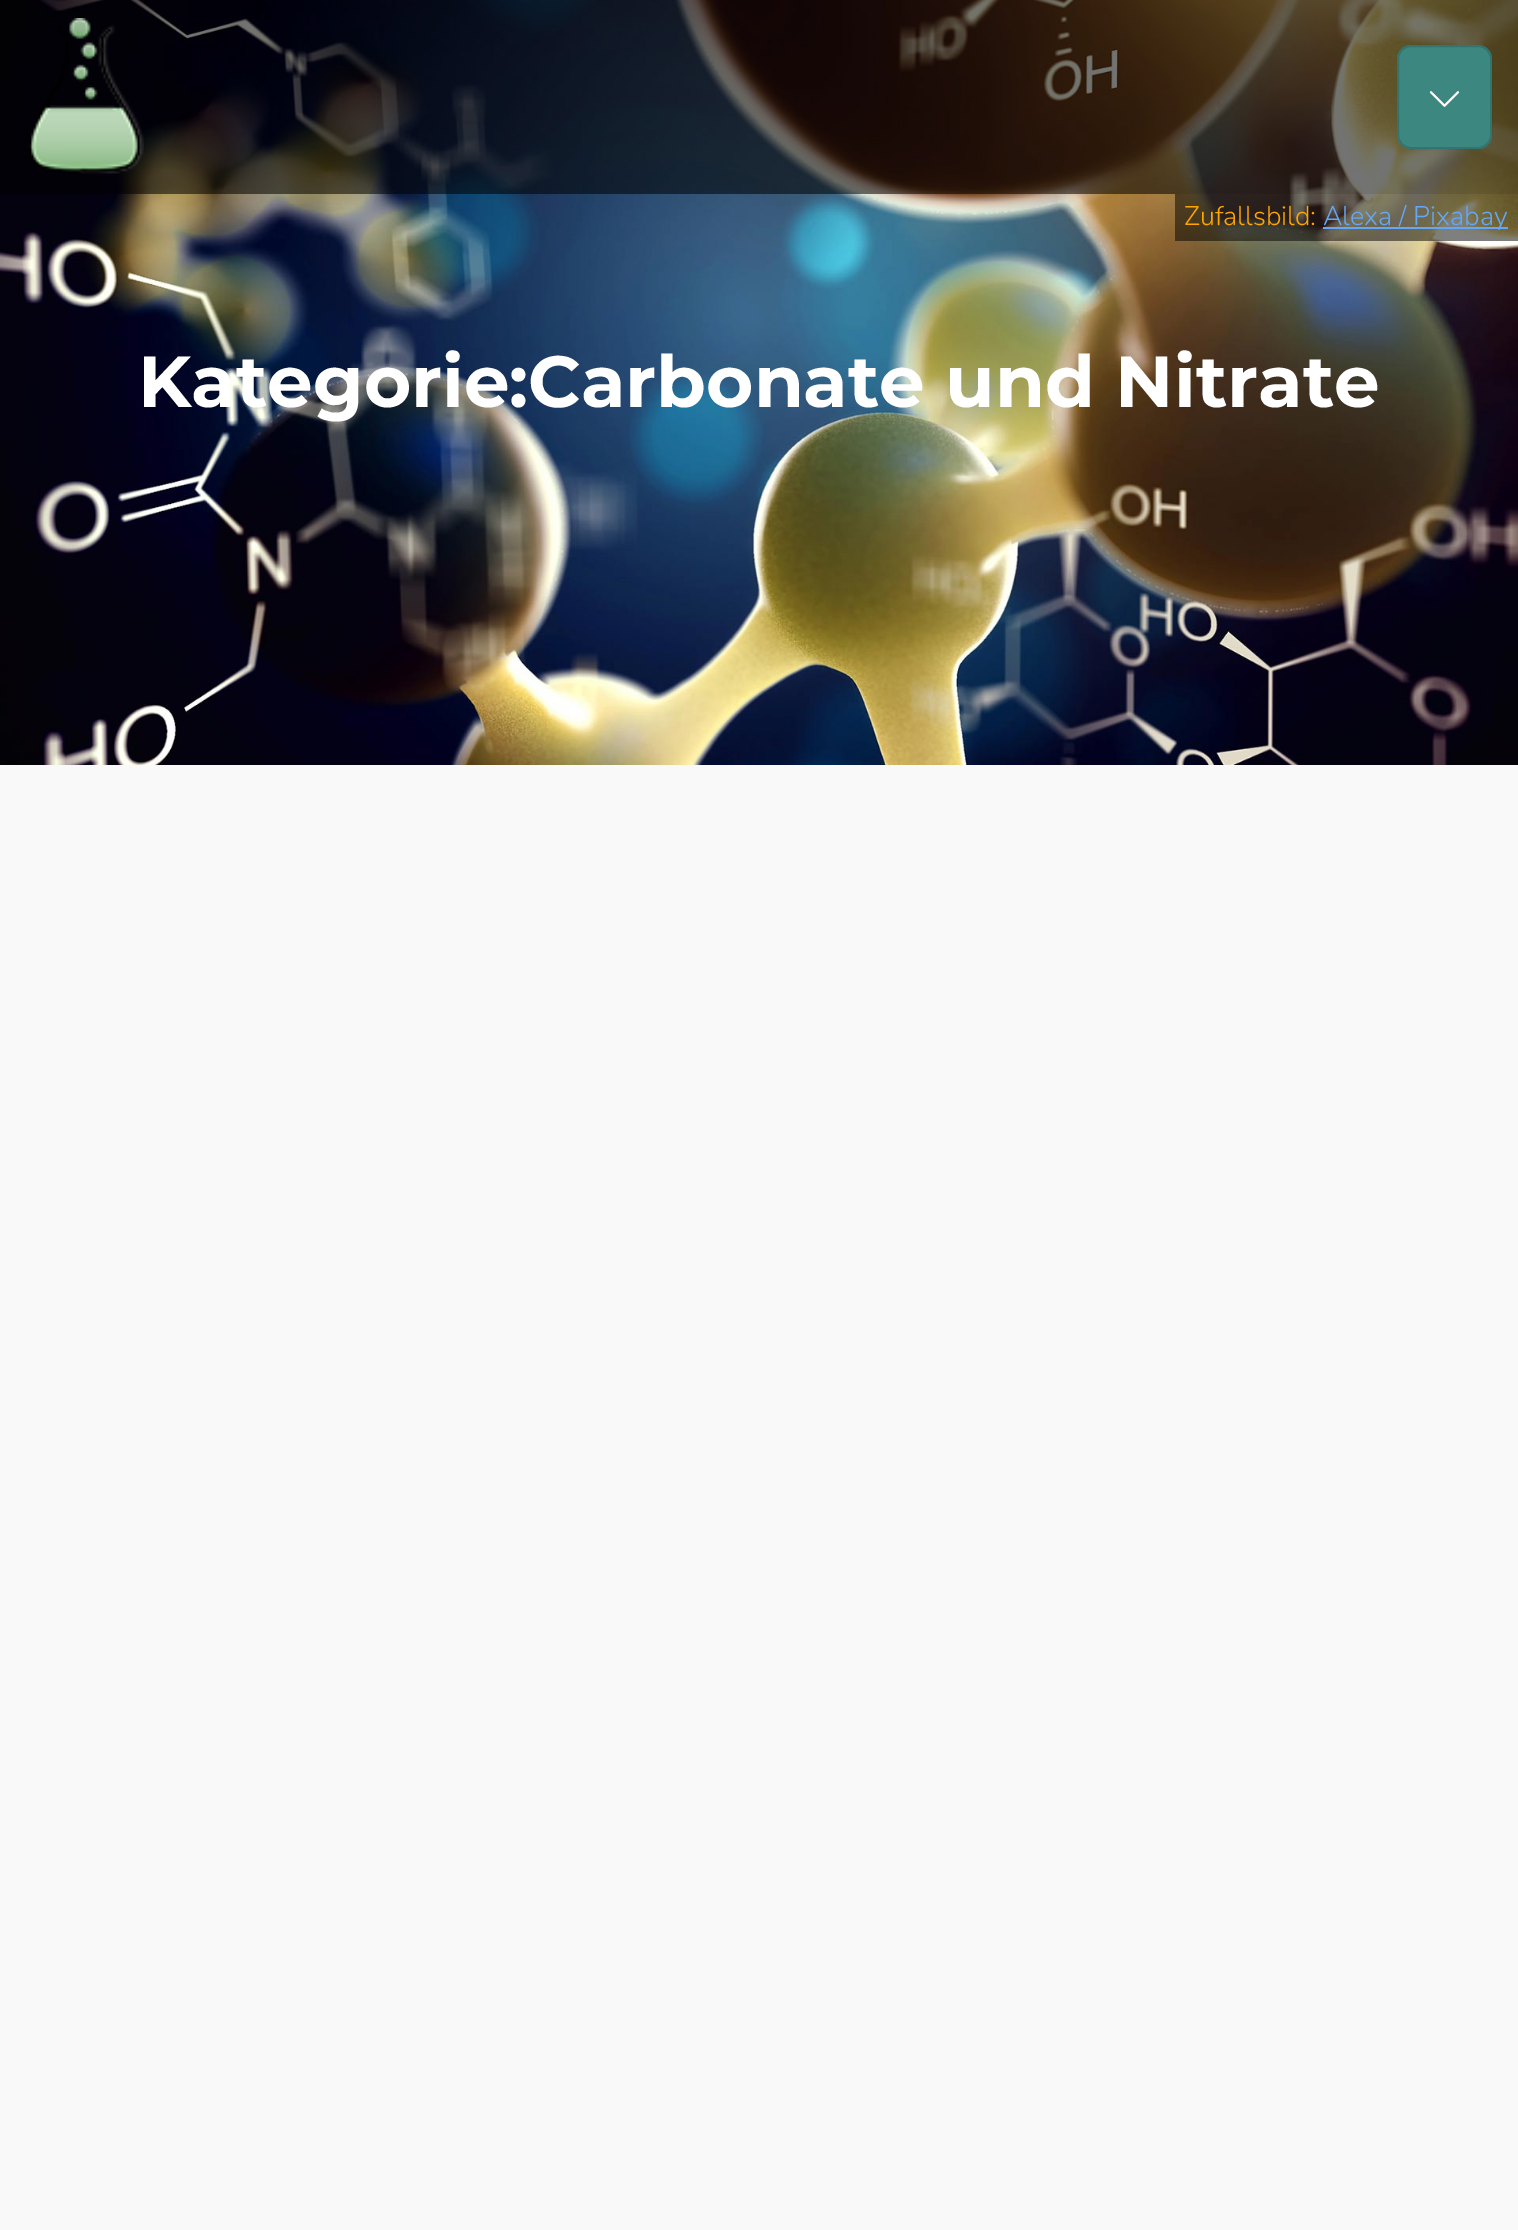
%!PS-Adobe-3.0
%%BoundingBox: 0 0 1518 2230
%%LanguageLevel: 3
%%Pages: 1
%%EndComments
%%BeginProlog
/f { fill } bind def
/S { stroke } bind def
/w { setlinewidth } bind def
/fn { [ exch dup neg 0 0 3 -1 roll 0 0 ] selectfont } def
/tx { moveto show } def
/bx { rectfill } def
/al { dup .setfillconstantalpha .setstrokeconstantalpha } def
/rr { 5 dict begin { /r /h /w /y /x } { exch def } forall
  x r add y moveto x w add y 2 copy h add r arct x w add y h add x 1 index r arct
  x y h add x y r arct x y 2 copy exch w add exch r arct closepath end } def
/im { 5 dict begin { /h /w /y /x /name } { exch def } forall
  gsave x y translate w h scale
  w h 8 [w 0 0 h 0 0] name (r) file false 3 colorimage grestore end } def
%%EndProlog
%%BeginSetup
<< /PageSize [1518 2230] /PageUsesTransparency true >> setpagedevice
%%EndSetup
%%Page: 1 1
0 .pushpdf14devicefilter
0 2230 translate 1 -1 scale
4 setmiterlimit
0.976 setgray
0 0 1518 2230 bx
(image2.raw) 0 0 1518 765 im
0.55 al
0 setgray
0 0 1518 194 bx
1 al
(image0.raw) 29 18 115 156 im
0.235 0.533 0.506 setrgbcolor
1397 45 95 104 14 rr f
0.15 al
0 setgray
2 w
1398 46 93 102 13 rr S
1 al
(image1.raw) 1429 91 31 16 im
0.5 al
1175 194 343 47 bx
/Nunito-Light 27 fn
1 al
1 0.647 0 setrgbcolor
(Zufallsbild:) 1184 225 tx
0.388 0.659 0.973 setrgbcolor
1323 227 185 2 bx
(Alexa / Pixabay) 1323 225 tx
/Montserrat-Bold 72.25 fn
1 setgray
(Kategorie:Carbonate und Nitrate) 138 407 tx
.poppdf14devicefilter showpage
%%EOF
